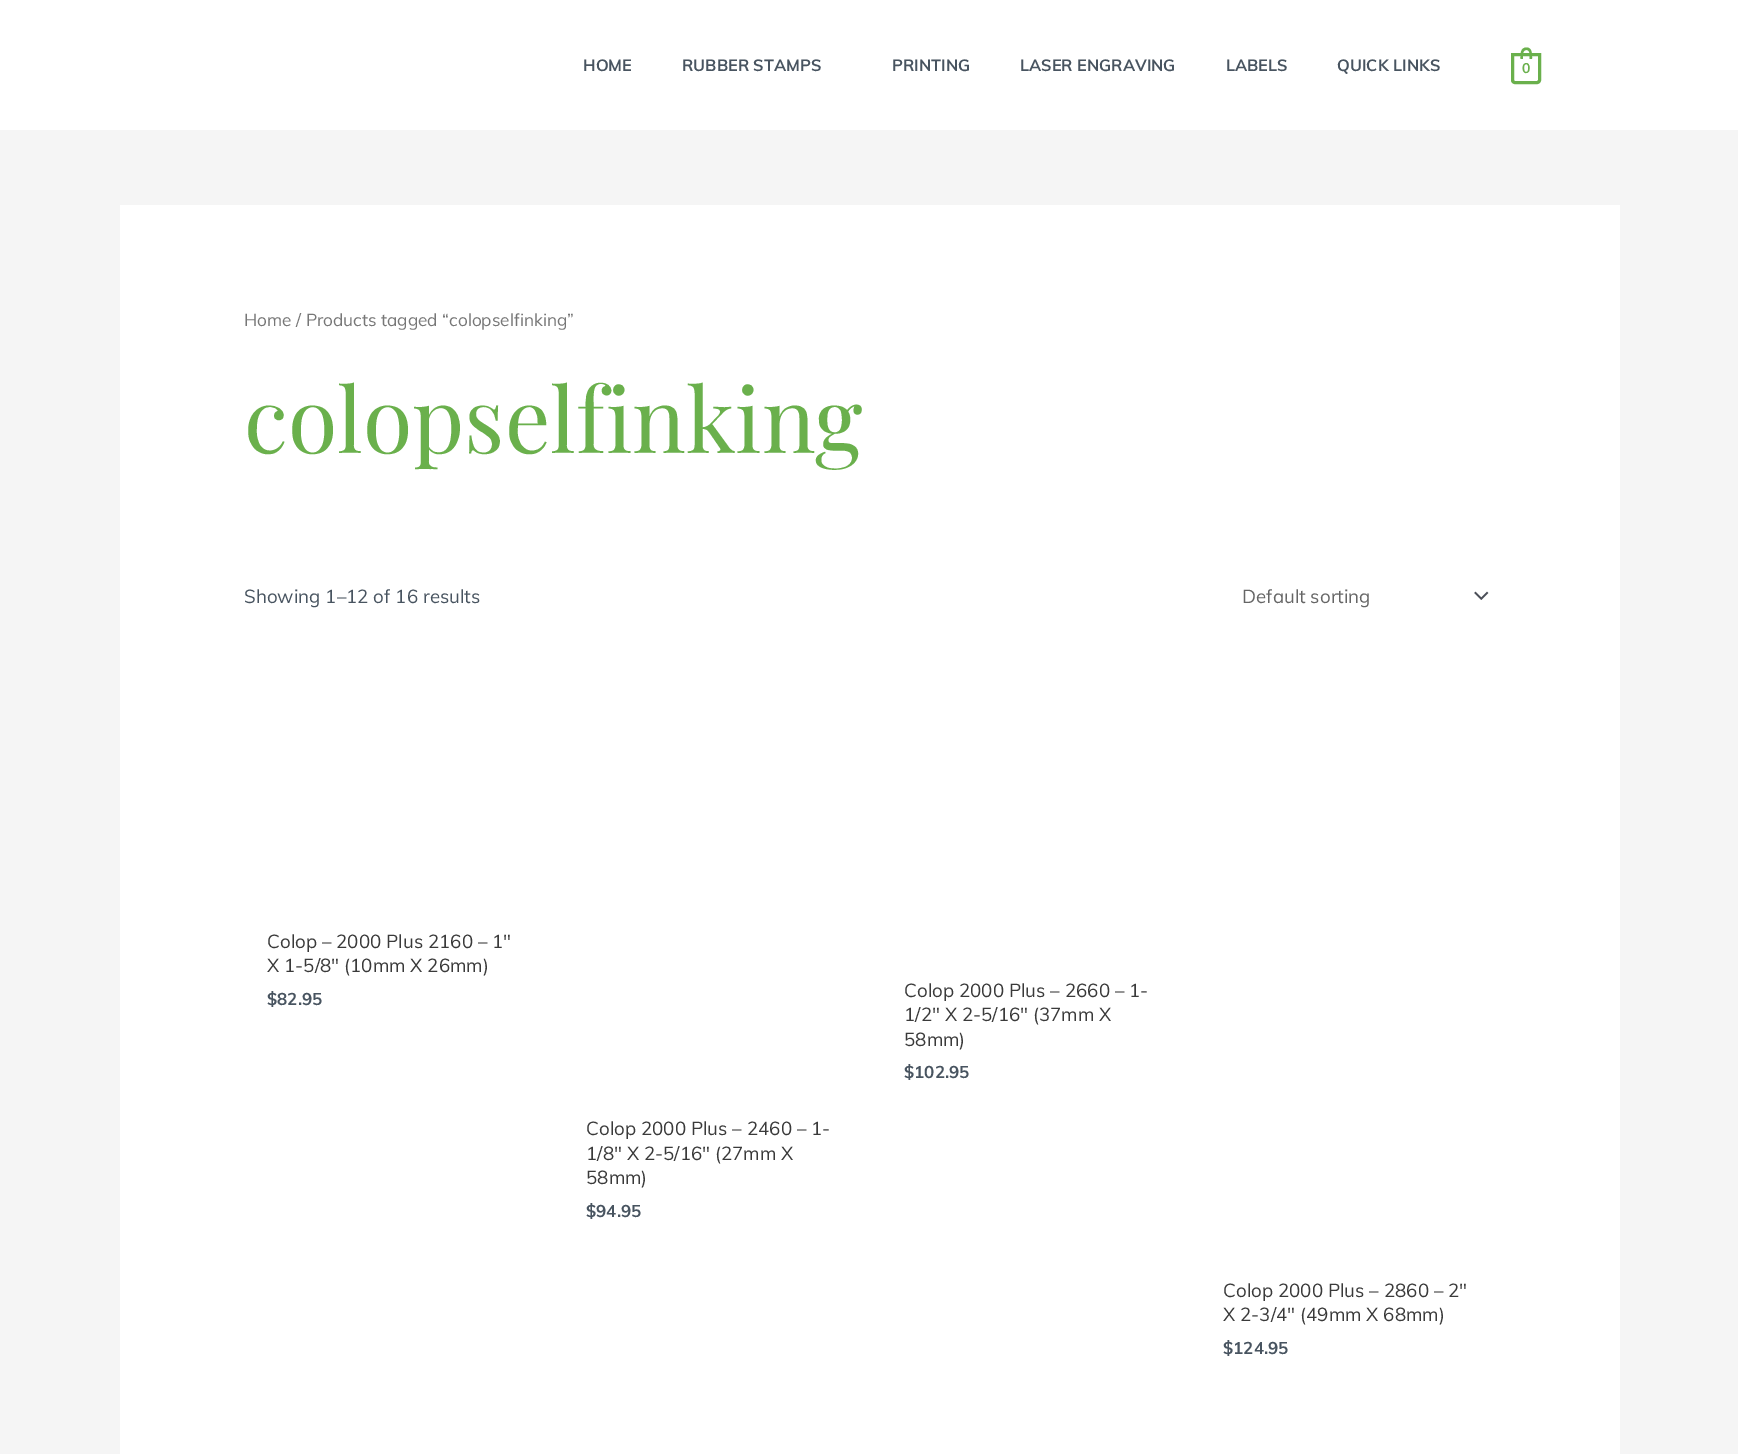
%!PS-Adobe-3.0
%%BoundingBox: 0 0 1738 1454
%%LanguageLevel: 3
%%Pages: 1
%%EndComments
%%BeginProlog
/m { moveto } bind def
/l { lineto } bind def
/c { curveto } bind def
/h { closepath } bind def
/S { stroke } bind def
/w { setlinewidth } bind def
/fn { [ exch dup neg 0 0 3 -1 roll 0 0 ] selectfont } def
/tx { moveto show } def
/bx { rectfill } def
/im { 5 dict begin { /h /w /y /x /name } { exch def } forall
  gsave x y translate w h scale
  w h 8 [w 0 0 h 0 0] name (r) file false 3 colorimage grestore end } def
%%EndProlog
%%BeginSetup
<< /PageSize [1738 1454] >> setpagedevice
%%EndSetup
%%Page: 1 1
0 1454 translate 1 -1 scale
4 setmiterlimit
0.961 setgray
0 0 1738 1454 bx
1 setgray
0 0 1738 130 bx
/Muli-Bold 16.25 fn
0.282 0.329 0.376 setrgbcolor
(HOME) 583 71 tx
(RUBBER STAMPS) 682 71 tx
(PRINTING) 892 71 tx
(LASER ENGRAVING) 1020 71 tx
(LABELS) 1226 71 tx
(QUICK LINKS) 1337 71 tx
0.416 0.69 0.298 setrgbcolor
3 w
1512.5 54.5 m 1539.5 54.5 l 1539.5 80 l 1539.5 81.5 1538.5 82.5 1537 82.5 c 1515 82.5 l 1513.5 82.5 1512.5 81.5 1512.5 80 c h S
1526.5 47.5 m 1532.5 47.5 1532 54.5 1532 59 c 1520.5 59 l 1520.5 54.5 1520 47.5 1526.5 47.5 c h 1526.5 50 m 1530.5 50 1529.5 56 1529.5 59 c 1523 59 l 1523 56 1522 50 1526.5 50 c h eofill
/Muli-Bold 14 fn
(0) 1522 73 tx
1 setgray
120 205 1500 1249 bx
/Muli-Regular 17.25 fn
0.467 setgray
(Home / Products tagged “colopselfinking”) 244 326 tx
/PlayfairDisplay-Regular 90 fn
0.416 0.69 0.298 setrgbcolor
(colopselfinking) 244 453 tx
/Muli-Regular 18.75 fn
0.282 0.329 0.376 setrgbcolor
(Showing 1–12 of 16 results) 244 603 tx
(image0.raw) 1474 591 15 9 im
0.4 setgray
(Default sorting) 1242 603 tx
0.227 setgray
(Colop – 2000 Plus 2160 – 1″) 267 948 tx
(X 1-5/8″ \(10mm X 26mm\)) 267 972 tx
/Muli-Bold 17 fn
0.282 0.329 0.376 setrgbcolor
($82.95) 267 1005 tx
/Muli-Regular 18.75 fn
0.227 setgray
(Colop 2000 Plus – 2660 – 1-) 904 997 tx
(1/2″ X 2-5/16″ \(37mm X) 904 1021 tx
(58mm\)) 904 1046 tx
/Muli-Bold 17 fn
0.282 0.329 0.376 setrgbcolor
($102.95) 904 1078 tx
/Muli-Regular 18.75 fn
0.227 setgray
(Colop 2000 Plus – 2460 – 1-) 586 1135 tx
(1/8″ X 2-5/16″ \(27mm X) 586 1160 tx
(58mm\)) 586 1184 tx
/Muli-Bold 17 fn
0.282 0.329 0.376 setrgbcolor
($94.95) 586 1217 tx
/Muli-Regular 18.75 fn
0.227 setgray
(Colop 2000 Plus – 2860 – 2″) 1223 1297 tx
(X 2-3/4″ \(49mm X 68mm\)) 1223 1321 tx
/Muli-Bold 17 fn
0.282 0.329 0.376 setrgbcolor
($124.95) 1223 1354 tx
showpage
%%EOF
